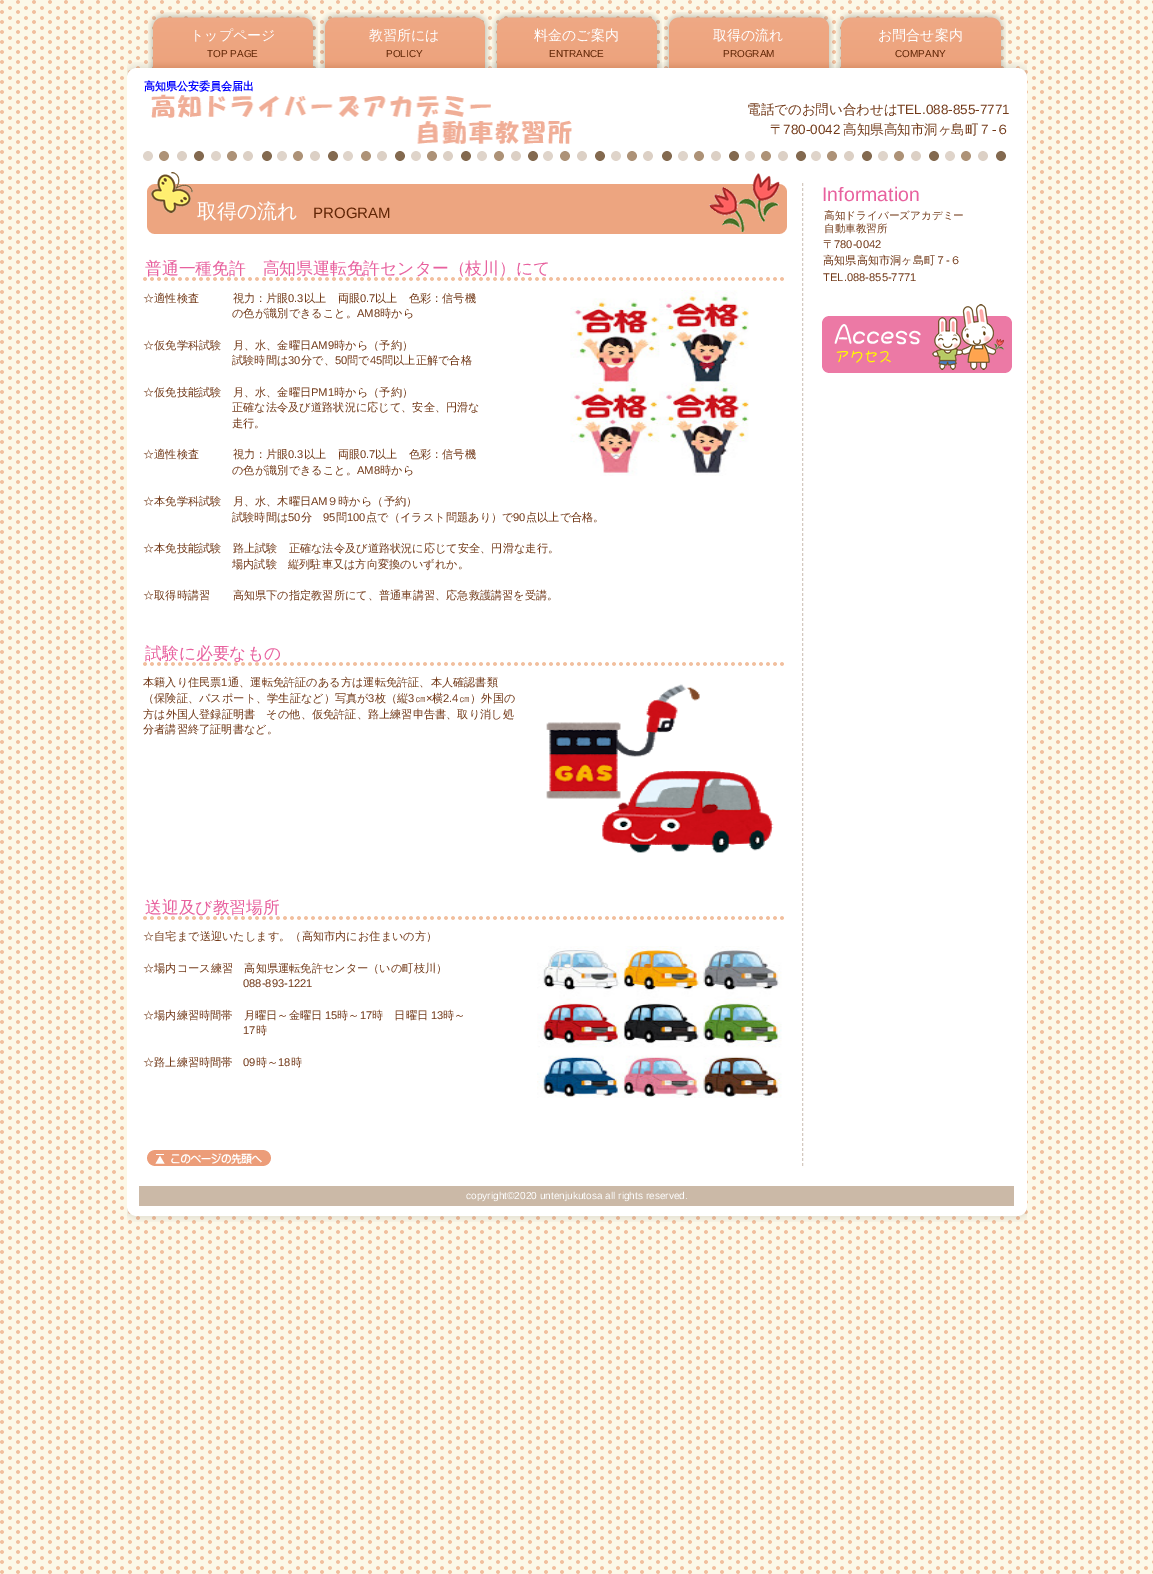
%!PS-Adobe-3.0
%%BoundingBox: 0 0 1153 1574
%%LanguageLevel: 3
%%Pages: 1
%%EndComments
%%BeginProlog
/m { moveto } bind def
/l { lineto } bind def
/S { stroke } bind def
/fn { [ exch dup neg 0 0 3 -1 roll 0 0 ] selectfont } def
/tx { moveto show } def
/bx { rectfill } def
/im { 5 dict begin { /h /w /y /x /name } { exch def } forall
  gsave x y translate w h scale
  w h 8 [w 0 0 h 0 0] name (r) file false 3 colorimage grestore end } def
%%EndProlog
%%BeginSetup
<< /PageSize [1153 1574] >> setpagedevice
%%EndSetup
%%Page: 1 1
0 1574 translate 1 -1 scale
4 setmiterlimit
1 setgray
0 0 1153 1574 bx
(image0.raw) 0 0 1153 1574 im
127 75 900 1111 bx
(image1.raw) 127 62 900 14 im
(image2.raw) 148 12 170 56 im
/WenQuanYiZenHei-Medium 14 fn
(トップページ) 190 40 tx
/LiberationSans-Regular 10 fn
0.38 0.149 0.024 setrgbcolor
(TOP PAGE) 207 57 tx
(image3.raw) 320 12 170 56 im
/WenQuanYiZenHei-Medium 14 fn
1 setgray
(教習所には) 369 40 tx
/LiberationSans-Regular 10 fn
0.38 0.149 0.024 setrgbcolor
(POLICY) 386 57 tx
(image4.raw) 492 12 170 56 im
/WenQuanYiZenHei-Medium 14 fn
1 setgray
(料金のご案内) 534 40 tx
/LiberationSans-Regular 10 fn
0.38 0.149 0.024 setrgbcolor
(ENTRANCE) 549 57 tx
(image5.raw) 664 12 170 56 im
/WenQuanYiZenHei-Medium 14 fn
1 setgray
(取得の流れ) 713 40 tx
/LiberationSans-Regular 10 fn
0.38 0.149 0.024 setrgbcolor
(PROGRAM) 723 57 tx
(image2.raw) 836 12 170 56 im
/WenQuanYiZenHei-Medium 14 fn
1 setgray
(お問合せ案内) 878 40 tx
/LiberationSans-Regular 10 fn
0.38 0.149 0.024 setrgbcolor
(COMPANY) 895 57 tx
0.831 0.788 0.749 setrgbcolor
[3 2] 0 setdash
802.5 183 m 802.5 1166 l S
(image6.raw) 147 172 640 62 im
/WenQuanYiZenHei-Medium 20 fn
1 setgray
(取得の流れ) 197 218 tx
/LiberationSans-Regular 15 fn
0.38 0.149 0.024 setrgbcolor
(PROGRAM) 313 218 tx
(image7.raw) 143 277 641 4 im
/WenQuanYiZenHei-Medium 16.8 fn
0.91 0.38 0.62 setrgbcolor
(普通一種免許　高知県運転免許センター（枝川）にて) 145 274 tx
/WenQuanYiZenHei-Medium 11.2 fn
0.447 0.224 0.094 setrgbcolor
(☆適性検査　　　視力：片眼) 143 302 tx
/LiberationSans-Regular 11.2 fn
(0.3) 288 302 tx
/WenQuanYiZenHei-Medium 11.2 fn
(以上　両眼) 304 302 tx
/LiberationSans-Regular 11.2 fn
(0.7) 360 302 tx
/WenQuanYiZenHei-Medium 11.2 fn
(以上　色彩：信号機) 375 302 tx
(の色が識別できること。) 232 317 tx
/LiberationSans-Regular 11.2 fn
(AM8) 357 317 tx
/WenQuanYiZenHei-Medium 11.2 fn
(時から) 380 317 tx
(☆仮免学科試験　月、水、金曜日) 143 349 tx
/LiberationSans-Regular 11.2 fn
(AM9) 311 349 tx
/WenQuanYiZenHei-Medium 11.2 fn
(時から（予約）) 334 349 tx
(試験時間は) 232 364 tx
/LiberationSans-Regular 11.2 fn
(30) 288 364 tx
/WenQuanYiZenHei-Medium 11.2 fn
(分で、) 301 364 tx
/LiberationSans-Regular 11.2 fn
(50) 335 364 tx
/WenQuanYiZenHei-Medium 11.2 fn
(問で) 347 364 tx
/LiberationSans-Regular 11.2 fn
(45) 370 364 tx
/WenQuanYiZenHei-Medium 11.2 fn
(問以上正解で合格) 382 364 tx
(☆仮免技能試験　月、水、金曜日) 143 396 tx
/LiberationSans-Regular 11.2 fn
(PM1) 311 396 tx
/WenQuanYiZenHei-Medium 11.2 fn
(時から（予約）) 334 396 tx
(正確な法令及び道路状況に応じて、安全、円滑な) 232 411 tx
(走行。) 232 427 tx
(☆適性検査　　　視力：片眼) 143 458 tx
/LiberationSans-Regular 11.2 fn
(0.3) 288 458 tx
/WenQuanYiZenHei-Medium 11.2 fn
(以上　両眼) 304 458 tx
/LiberationSans-Regular 11.2 fn
(0.7) 360 458 tx
/WenQuanYiZenHei-Medium 11.2 fn
(以上　色彩：信号機) 375 458 tx
(の色が識別できること。) 232 474 tx
/LiberationSans-Regular 11.2 fn
(AM8) 357 474 tx
/WenQuanYiZenHei-Medium 11.2 fn
(時から) 380 474 tx
(☆本免学科試験　月、水、木曜日) 143 505 tx
/LiberationSans-Regular 11.2 fn
(AM) 311 505 tx
/WenQuanYiZenHei-Medium 11.2 fn
(９時から（予約）) 327 505 tx
(試験時間は) 232 521 tx
/LiberationSans-Regular 11.2 fn
(50) 288 521 tx
/WenQuanYiZenHei-Medium 11.2 fn
(分) 301 521 tx
/LiberationSans-Regular 11.2 fn
(95) 323 521 tx
/WenQuanYiZenHei-Medium 11.2 fn
(問) 336 521 tx
/LiberationSans-Regular 11.2 fn
(100) 347 521 tx
/WenQuanYiZenHei-Medium 11.2 fn
(点で（イラスト問題あり）で) 366 521 tx
/LiberationSans-Regular 11.2 fn
(90) 513 521 tx
/WenQuanYiZenHei-Medium 11.2 fn
(点以上で合格。) 526 521 tx
(☆本免技能試験　路上試験　正確な法令及び道路状況に応じて安全、円滑な走行。) 143 552 tx
(場内試験　縦列駐車又は方向変換のいずれか。) 232 568 tx
(☆取得時講習　　高知県下の指定教習所にて、普通車講習、応急救護講習を受講。) 143 599 tx
(image8.raw) 570 290 179 186 im
(image7.raw) 143 662 641 4 im
/WenQuanYiZenHei-Medium 16.8 fn
0.91 0.38 0.62 setrgbcolor
(試験に必要なもの) 145 659 tx
/WenQuanYiZenHei-Medium 11.2 fn
0.447 0.224 0.094 setrgbcolor
(本籍入り住民票) 143 686 tx
/LiberationSans-Regular 11.2 fn
(1) 221 686 tx
/WenQuanYiZenHei-Medium 11.2 fn
(通、運転免許証のある方は運転免許証、本人確認書類) 228 686 tx
(（保険証、パスポート、学生証など）写真が) 143 702 tx
/LiberationSans-Regular 11.2 fn
(3) 368 702 tx
/WenQuanYiZenHei-Medium 11.2 fn
(枚（縦) 375 702 tx
/LiberationSans-Regular 11.2 fn
(3) 408 702 tx
/WenQuanYiZenHei-Medium 11.2 fn
(㎝) 415 702 tx
/LiberationSans-Regular 11.2 fn
(×) 426 702 tx
/WenQuanYiZenHei-Medium 11.2 fn
(横) 432 702 tx
/LiberationSans-Regular 11.2 fn
(2.4) 443 702 tx
/WenQuanYiZenHei-Medium 11.2 fn
(㎝）外国の) 459 702 tx
(方は外国人登録証明書　その他、仮免許証、路上練習申告書、取り消し処) 143 718 tx
(分者講習終了証明書など。) 143 733 tx
(image9.raw) 546 684 228 169 im
(image7.raw) 143 916 641 4 im
/WenQuanYiZenHei-Medium 16.8 fn
0.91 0.38 0.62 setrgbcolor
(送迎及び教習場所) 145 913 tx
/WenQuanYiZenHei-Medium 11.2 fn
0.447 0.224 0.094 setrgbcolor
(☆自宅まで送迎いたします。（高知市内にお住まいの方）) 143 940 tx
(☆場内コース練習　高知県運転免許センター（いの町枝川）) 143 972 tx
/LiberationSans-Regular 11.2 fn
(088-893-1221) 243 987 tx
/WenQuanYiZenHei-Medium 11.2 fn
(☆場内練習時間帯　月曜日～金曜日) 143 1019 tx
/LiberationSans-Regular 11.2 fn
(15) 325 1019 tx
/WenQuanYiZenHei-Medium 11.2 fn
(時～) 337 1019 tx
/LiberationSans-Regular 11.2 fn
(17) 360 1019 tx
/WenQuanYiZenHei-Medium 11.2 fn
(時　日曜日) 372 1019 tx
/LiberationSans-Regular 11.2 fn
(13) 431 1019 tx
/WenQuanYiZenHei-Medium 11.2 fn
(時～) 443 1019 tx
/LiberationSans-Regular 11.2 fn
(17) 243 1034 tx
/WenQuanYiZenHei-Medium 11.2 fn
(時) 256 1034 tx
(☆路上練習時間帯) 143 1066 tx
/LiberationSans-Regular 11.2 fn
(09) 243 1066 tx
/WenQuanYiZenHei-Medium 11.2 fn
(時～) 256 1066 tx
/LiberationSans-Regular 11.2 fn
(18) 278 1066 tx
/WenQuanYiZenHei-Medium 11.2 fn
(時) 291 1066 tx
(image10.raw) 537 946 245 152 im
(image11.raw) 147 1150 124 16 im
/LiberationSans-Regular 19.5 fn
0.91 0.38 0.62 setrgbcolor
(Information) 822 201 tx
/WenQuanYiZenHei-Medium 10.6 fn
0.447 0.224 0.094 setrgbcolor
(高知ドライバーズアカデミー) 824 219 tx
(自動車教習所) 824 232 tx
/WenQuanYiZenHei-Medium 11.2 fn
(〒) 823 248 tx
/LiberationSans-Regular 11.2 fn
(780-0042) 834 248 tx
/WenQuanYiZenHei-Medium 11.2 fn
(高知県高知市洞ヶ島町７) 823 264 tx
/LiberationSans-Regular 11.2 fn
(-) 946 264 tx
/WenQuanYiZenHei-Medium 11.2 fn
(６) 950 264 tx
/LiberationSans-Regular 11.2 fn
(TEL.088-855-7771) 823 281 tx
(image12.raw) 822 304 190 69 im
(image13.raw) 143 151 863 10 im
/WenQuanYiZenHei-Bold 11 fn
0 0 1 setrgbcolor
(高知県公安委員会届出) 144 90 tx
(image14.raw) 151 94 421 50 im
/WenQuanYiZenHei-Medium 13.5 fn
0.447 0.224 0.094 setrgbcolor
(電話でのお問い合わせは) 747 114 tx
/LiberationSans-Regular 13.5 fn
(TEL.088-855-7771) 897 114 tx
/WenQuanYiZenHei-Medium 13.5 fn
(〒) 770 134 tx
/LiberationSans-Regular 13.5 fn
(780-0042) 783 134 tx
/WenQuanYiZenHei-Medium 13.5 fn
(高知県高知市洞ヶ島町７) 843 134 tx
/LiberationSans-Regular 13.5 fn
(-) 992 134 tx
/WenQuanYiZenHei-Medium 13.5 fn
(６) 996 134 tx
(image15.raw) 127 1186 900 36 im
0.796 0.725 0.655 setrgbcolor
139 1186 875 20 bx
/LiberationSans-Regular 10.1 fn
1 setgray
(copyright©2020 untenjukutosa all rights reserved.) 466 1199 tx
showpage
%%EOF
